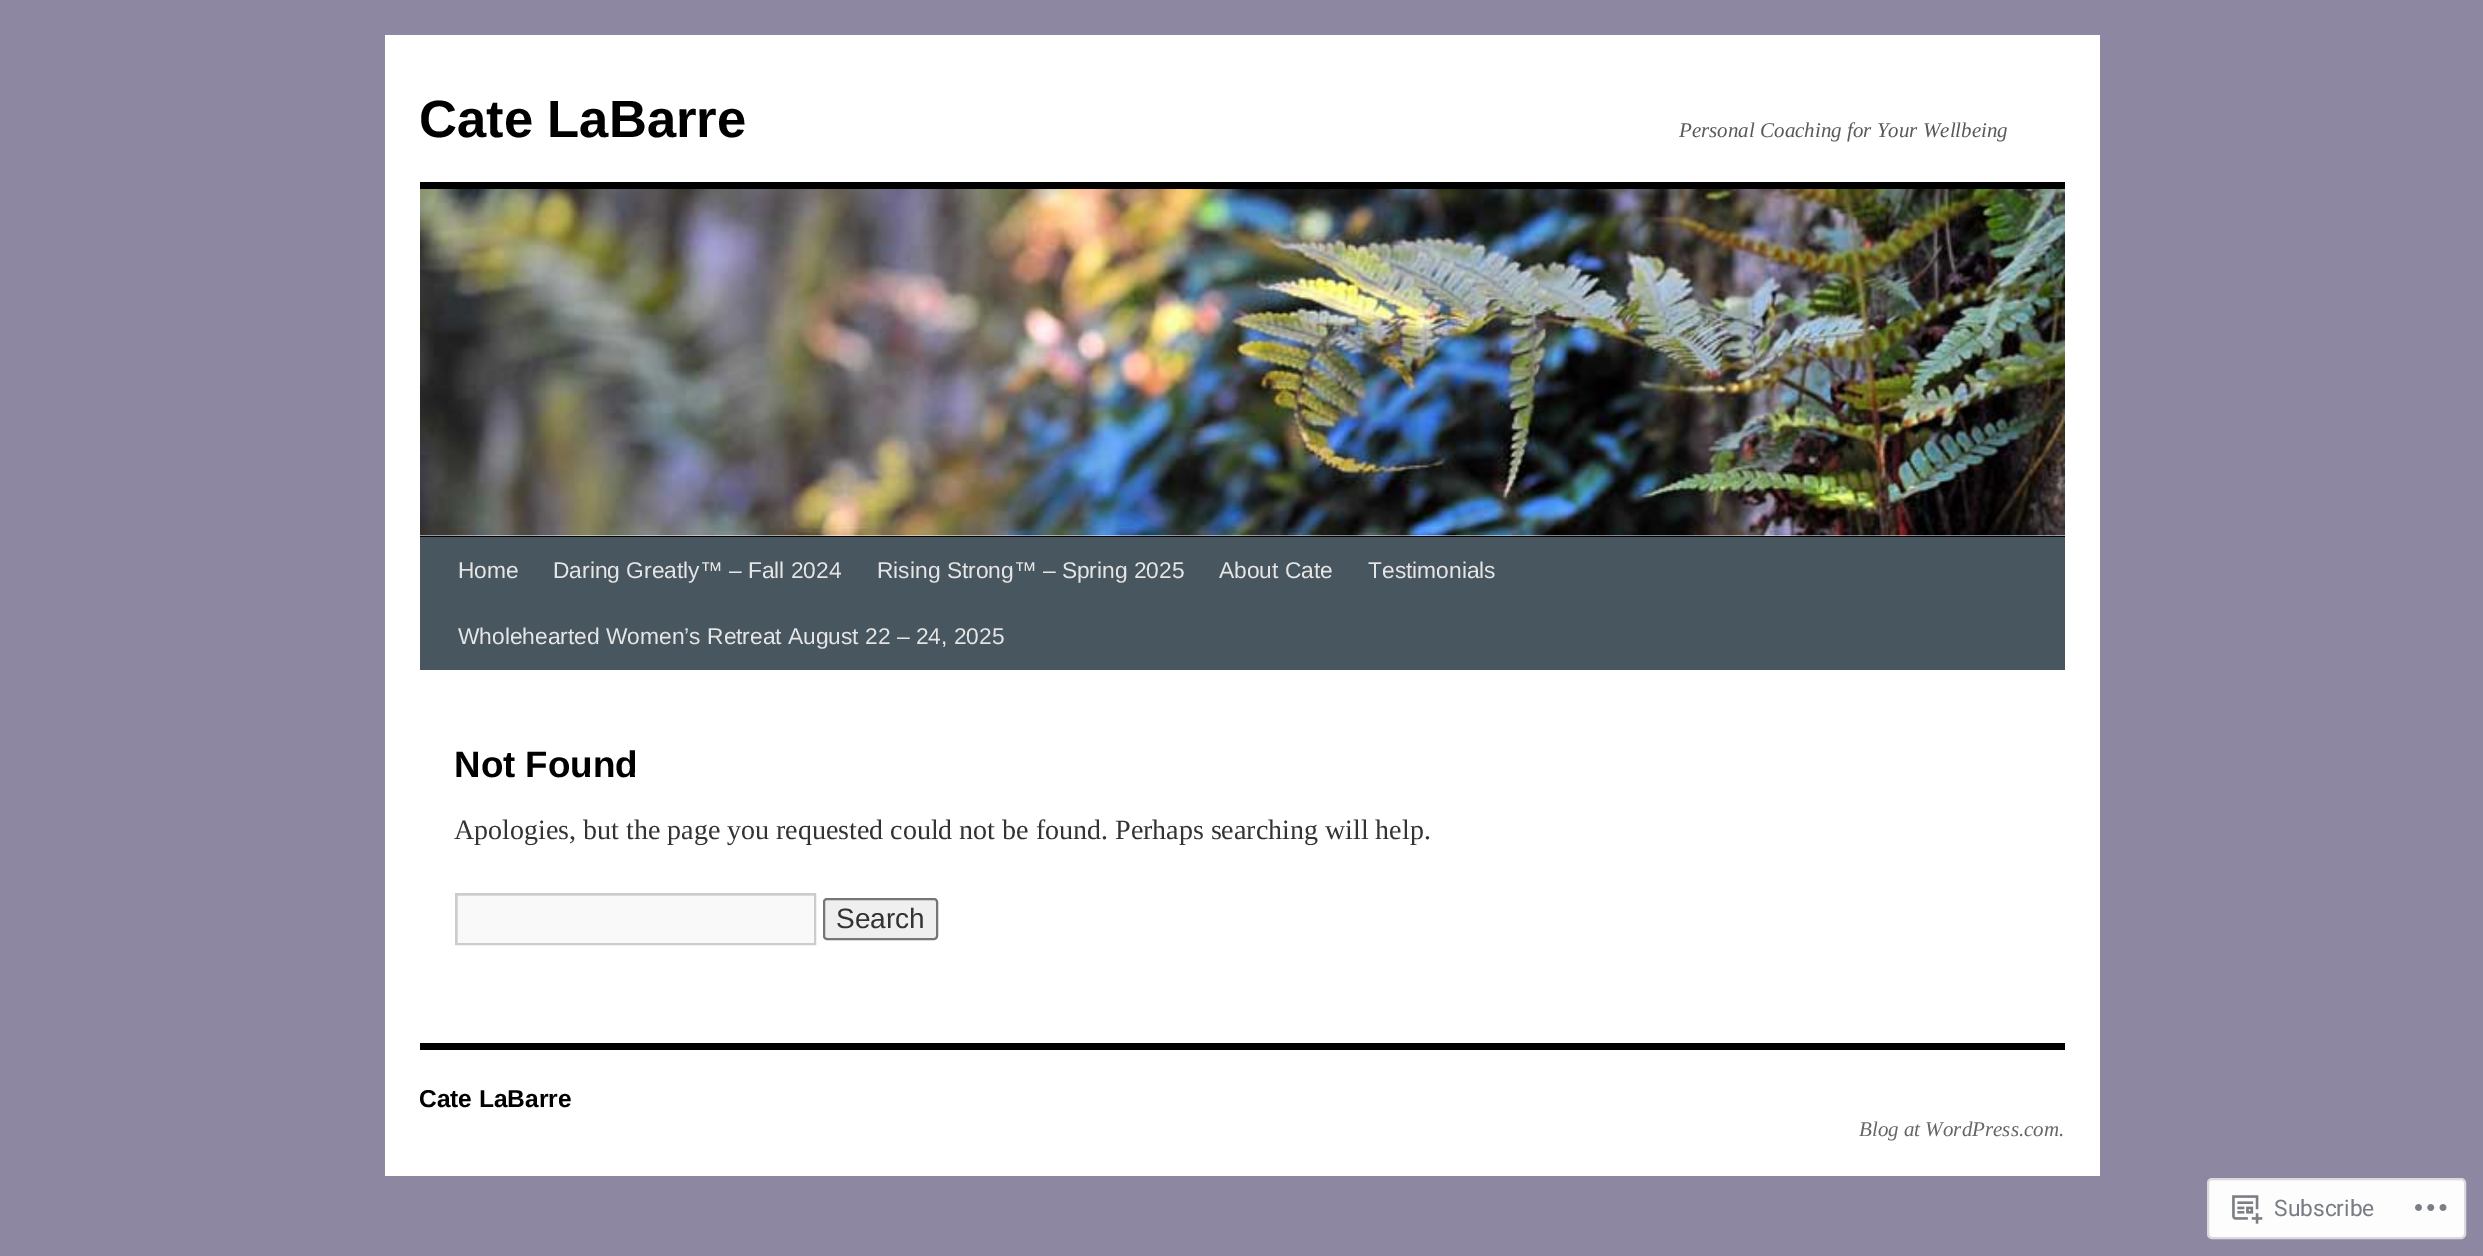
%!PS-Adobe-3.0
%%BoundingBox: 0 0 2483 1256
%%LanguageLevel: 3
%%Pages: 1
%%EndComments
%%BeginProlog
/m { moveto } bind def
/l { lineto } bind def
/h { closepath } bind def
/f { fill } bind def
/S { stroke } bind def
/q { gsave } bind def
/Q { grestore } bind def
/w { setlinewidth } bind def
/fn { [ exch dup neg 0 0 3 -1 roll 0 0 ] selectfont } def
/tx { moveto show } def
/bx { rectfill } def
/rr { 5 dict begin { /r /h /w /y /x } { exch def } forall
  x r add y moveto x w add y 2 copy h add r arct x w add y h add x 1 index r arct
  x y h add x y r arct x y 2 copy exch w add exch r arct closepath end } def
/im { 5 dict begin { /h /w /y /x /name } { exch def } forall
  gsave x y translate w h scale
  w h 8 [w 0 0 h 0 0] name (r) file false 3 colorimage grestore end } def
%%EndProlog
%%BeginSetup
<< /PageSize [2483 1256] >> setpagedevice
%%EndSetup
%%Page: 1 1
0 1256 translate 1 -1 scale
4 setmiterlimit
0.553 0.529 0.631 setrgbcolor
0 0 2483 1256 bx
1 setgray
385 35 1715 1141 bx
/LiberationSans-Bold 52.5 fn
0 setgray
(Cate LaBarre) 419 137 tx
/LiberationSerif-Italic 21 fn
0.349 setgray
(Personal Coaching for Your Wellbeing) 1679 137 tx
0 setgray
420 182 1645 7 bx
420 536 1645 1 bx
(image0.raw) 420 189 1645 347 im
0.282 0.337 0.373 setrgbcolor
420 537 1645 133 bx
/LiberationSans-Regular 22.75 fn
0.898 setgray
(Home) 458 578 tx
(Daring Greatly™ – Fall 2024) 553 578 tx
(Rising Strong™ – Spring 2025) 877 578 tx
(About Cate) 1219 578 tx
(Testimonials) 1368 578 tx
(Wholehearted Women’s Retreat August 22 – 24, 2025) 458 644 tx
/LiberationSans-Bold 36.75 fn
0 setgray
(Not Found) 454 777 tx
/LiberationSerif-Regular 28 fn
0.2 setgray
(Apologies, but the page you requested could not be found. Perhaps searching will help.) 454 839 tx
0.976 setgray
458 896 356 47 bx
q
457 894 357 49 rectclip
0.878 setgray
284 721 m 987 721 l 987 1116 l 284 1116 l h 458 896 m 816 896 l 816 945 l 458 945 l h eofill
Q
0.8 setgray
2 w
456 894 359 50 rectstroke
0.937 setgray
824 899 113 40 3 rr q f Q
0.463 setgray
S
/LiberationSans-Regular 28 fn
0.2 setgray
(Search) 836 928 tx
0 setgray
420 1043 1645 7 bx
/LiberationSans-Bold 24.5 fn
(Cate LaBarre) 419 1107 tx
/LiberationSerif-Italic 21 fn
0.4 setgray
(Blog at WordPress.com.) 1859 1136 tx
0.992 setgray
2208 1179 257 59 4 rr q f Q
0.855 0.855 0.867 setrgbcolor
S
(image1.raw) 2232 1195 31 29 im
/Roboto-Regular 22.75 fn
0.471 0.486 0.514 setrgbcolor
(Subscribe) 2274 1216 tx
(image2.raw) 2415 1204 32 7 im
showpage
%%EOF
